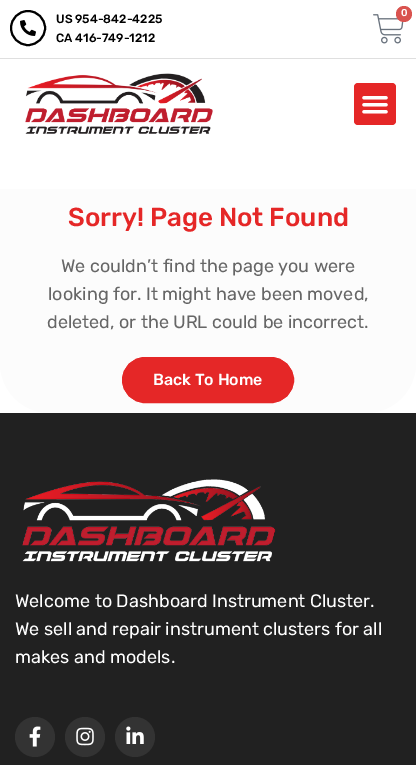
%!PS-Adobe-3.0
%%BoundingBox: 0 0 416 765
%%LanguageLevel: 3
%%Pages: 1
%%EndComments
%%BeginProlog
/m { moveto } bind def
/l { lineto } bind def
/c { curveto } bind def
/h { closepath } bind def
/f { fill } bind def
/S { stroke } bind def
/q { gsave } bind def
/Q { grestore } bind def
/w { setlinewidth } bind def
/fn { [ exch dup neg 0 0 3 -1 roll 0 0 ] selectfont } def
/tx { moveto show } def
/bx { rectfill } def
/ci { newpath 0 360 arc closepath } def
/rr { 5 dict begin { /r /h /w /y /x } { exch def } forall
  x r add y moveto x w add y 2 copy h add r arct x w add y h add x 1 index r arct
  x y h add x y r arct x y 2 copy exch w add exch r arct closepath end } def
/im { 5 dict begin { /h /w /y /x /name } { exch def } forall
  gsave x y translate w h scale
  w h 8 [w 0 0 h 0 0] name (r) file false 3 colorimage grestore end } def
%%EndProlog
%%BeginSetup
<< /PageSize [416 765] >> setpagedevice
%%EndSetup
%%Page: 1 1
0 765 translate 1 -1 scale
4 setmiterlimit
1 setgray
0 0 416 765 bx
0.875 setgray
0 58 416 1 bx
(image0.raw) 373 14 31 30 im
0.851 0.325 0.31 setrgbcolor
404 14 8 ci f
/Rubik-Medium 10 fn
1 setgray
(0) 401 16 tx
0 setgray
2 w
28 28 17 ci S
(image1.raw) 20 20 16 16 im
/Rubik-Medium 12 fn
(US 954-842-4225) 56 23 tx
(CA 416-749-1212) 56 42 tx
(image2.raw) 25 73 188 61 im
0.898 0.153 0.153 setrgbcolor
354 83 42 42 4 rr f
(image3.raw) 362 96 26 18 im
0.988 setgray
0 189 m 416 189 l 416 363 l 416 390.5 393.5 413 366 413 c 50 413 l 22.5 413 0 390.5 0 363 c h f
/Rubik-Medium 26 fn
0.898 0.153 0.153 setrgbcolor
(Sorry! Page Not Found) 68 226 tx
/Rubik-Regular 18 fn
0.4 setgray
(We couldn’t find the page you were) 61 272 tx
(looking for. It might have been moved,) 48 300 tx
(deleted, or the URL could be incorrect.) 47 328 tx
0.898 0.153 0.153 setrgbcolor
122.5 357.5 171 45 22.5 rr q f Q
1 w
S
/Rubik-Medium 16 fn
1 setgray
(Back To Home) 153 385 tx
0.129 setgray
0 413 416 352 bx
(image4.raw) 22 479 254 83 im
/Rubik-Regular 18 fn
1 setgray
(Welcome to Dashboard Instrument Cluster.) 15 607 tx
(We sell and repair instrument clusters for all) 15 635 tx
(makes and models.) 15 663 tx
0.2 setgray
35 737 20 ci f
(image5.raw) 29 726 12 21 im
85 737 20 ci f
(image6.raw) 76 727 18 19 im
135 737 20 ci f
(image7.raw) 126 726 18 18 im
showpage
%%EOF
